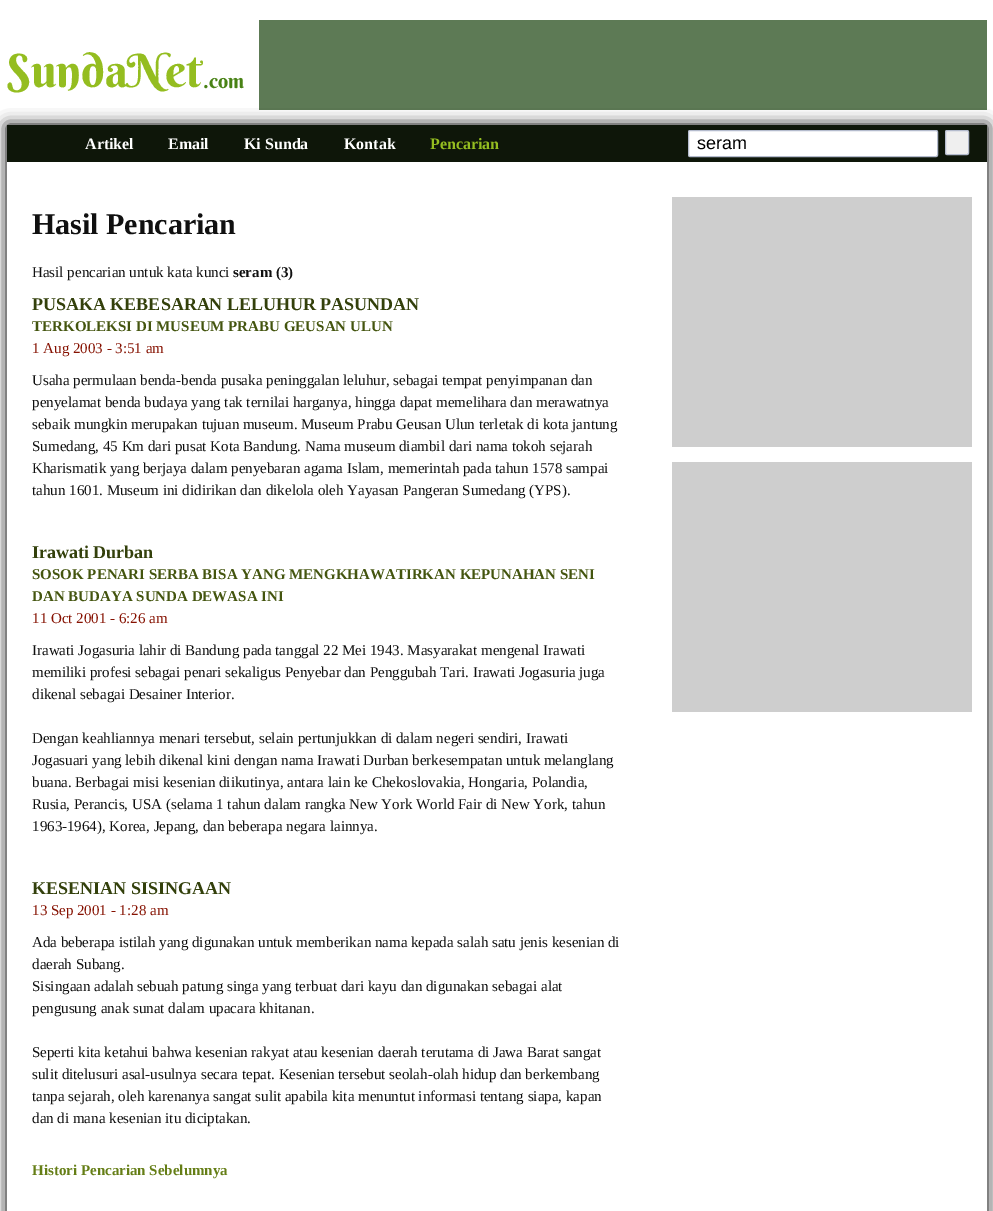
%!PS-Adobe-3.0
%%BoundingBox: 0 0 993 1211
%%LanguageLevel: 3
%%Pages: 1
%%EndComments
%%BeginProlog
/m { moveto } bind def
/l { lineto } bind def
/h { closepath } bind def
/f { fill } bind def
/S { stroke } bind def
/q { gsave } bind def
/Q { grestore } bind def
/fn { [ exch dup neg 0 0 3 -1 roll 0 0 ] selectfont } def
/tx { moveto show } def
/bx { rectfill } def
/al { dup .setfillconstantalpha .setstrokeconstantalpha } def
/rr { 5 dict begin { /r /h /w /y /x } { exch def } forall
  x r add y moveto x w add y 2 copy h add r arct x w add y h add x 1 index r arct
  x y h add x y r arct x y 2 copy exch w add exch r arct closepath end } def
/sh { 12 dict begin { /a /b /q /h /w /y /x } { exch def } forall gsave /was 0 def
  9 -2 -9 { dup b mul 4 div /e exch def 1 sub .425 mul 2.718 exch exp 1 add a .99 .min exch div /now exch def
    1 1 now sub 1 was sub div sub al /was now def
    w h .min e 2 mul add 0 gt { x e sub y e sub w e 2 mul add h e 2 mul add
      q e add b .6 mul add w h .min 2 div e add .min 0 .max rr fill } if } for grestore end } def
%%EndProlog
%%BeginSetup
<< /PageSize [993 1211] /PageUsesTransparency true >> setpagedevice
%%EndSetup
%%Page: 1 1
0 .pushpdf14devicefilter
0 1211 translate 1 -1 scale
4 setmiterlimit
1 setgray
0 0 993 1211 bx
/BerkshireSwash-Regular 46 fn
0.58 0.741 0.125 setrgbcolor
(SundaNet) 7 87 tx
/BerkshireSwash-Regular 20 fn
0.282 0.51 0.082 setrgbcolor
(.com) 203 88 tx
0.365 0.478 0.333 setrgbcolor
259 20 728 90 bx
q
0 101 m 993 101 l 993 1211 l 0 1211 l h 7 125 m 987 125 l 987 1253 l 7 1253 l h eoclip newpath
0 setgray
7 125 980 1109 0 7.5 1 sh
Q
0.055 0.086 0.035 setrgbcolor
7 125 980 37 bx
/LiberationSerif-Bold 16 fn
1 setgray
(Artikel) 85 149 tx
(Email) 168 149 tx
(Ki Sunda) 244 149 tx
(Kontak) 344 149 tx
0.58 0.741 0.125 setrgbcolor
(Pencarian) 430 149 tx
1 setgray
688.5 130.5 249 26 1.5 rr q f Q
0.706 0.733 0.804 setrgbcolor
S
/LiberationSans-Regular 18 fn
0 setgray
(seram) 697 149 tx
0.937 setgray
945.5 130.5 23 24 1.5 rr q f Q
0.706 0.733 0.804 setrgbcolor
S
/LiberationSerif-Bold 30 fn
0.063 setgray
(Hasil Pencarian) 32 234 tx
/LiberationSerif-Regular 15 fn
(Hasil pencarian untuk kata kunci) 32 277 tx
/LiberationSerif-Bold 15 fn
(seram \(3\)) 233 277 tx
/LiberationSerif-Bold 18 fn
0.2 0.251 0.043 setrgbcolor
(PUSAKA KEBESARAN LELUHUR PASUNDAN) 32 310 tx
/LiberationSerif-Bold 15 fn
0.267 0.333 0.059 setrgbcolor
(TERKOLEKSI DI MUSEUM PRABU GEUSAN ULUN) 32 331 tx
/LiberationSerif-Regular 15 fn
0.525 0.071 0.008 setrgbcolor
(1 Aug 2003 - 3:51 am) 32 353 tx
0.063 setgray
(Usaha permulaan benda-benda pusaka peninggalan leluhur, sebagai tempat penyimpanan dan) 32 385 tx
(penyelamat benda budaya yang tak ternilai harganya, hingga dapat memelihara dan merawatnya) 32 407 tx
(sebaik mungkin merupakan tujuan museum. Museum Prabu Geusan Ulun terletak di kota jantung) 32 429 tx
(Sumedang, 45 Km dari pusat Kota Bandung. Nama museum diambil dari nama tokoh sejarah) 32 451 tx
(Kharismatik yang berjaya dalam penyebaran agama Islam, memerintah pada tahun 1578 sampai) 32 473 tx
(tahun 1601. Museum ini didirikan dan dikelola oleh Yayasan Pangeran Sumedang \(YPS\).) 32 495 tx
/LiberationSerif-Bold 18 fn
0.2 0.251 0.043 setrgbcolor
(Irawati Durban) 32 558 tx
/LiberationSerif-Bold 15 fn
0.267 0.333 0.059 setrgbcolor
(SOSOK PENARI SERBA BISA YANG MENGKHAWATIRKAN KEPUNAHAN SENI) 32 579 tx
(DAN BUDAYA SUNDA DEWASA INI) 32 601 tx
/LiberationSerif-Regular 15 fn
0.525 0.071 0.008 setrgbcolor
(11 Oct 2001 - 6:26 am) 32 623 tx
0.063 setgray
(Irawati Jogasuria lahir di Bandung pada tanggal 22 Mei 1943. Masyarakat mengenal Irawati) 32 655 tx
(memiliki profesi sebagai penari sekaligus Penyebar dan Penggubah Tari. Irawati Jogasuria juga) 32 677 tx
(dikenal sebagai Desainer Interior.) 32 699 tx
(Dengan keahliannya menari tersebut, selain pertunjukkan di dalam negeri sendiri, Irawati) 32 743 tx
(Jogasuari yang lebih dikenal kini dengan nama Irawati Durban berkesempatan untuk melanglang) 32 765 tx
(buana. Berbagai misi kesenian diikutinya, antara lain ke Chekoslovakia, Hongaria, Polandia,) 32 787 tx
(Rusia, Perancis, USA \(selama 1 tahun dalam rangka New York World Fair di New York, tahun) 32 809 tx
(1963-1964\), Korea, Jepang, dan beberapa negara lainnya.) 32 831 tx
/LiberationSerif-Bold 18 fn
0.2 0.251 0.043 setrgbcolor
(KESENIAN SISINGAAN) 32 894 tx
/LiberationSerif-Regular 15 fn
0.525 0.071 0.008 setrgbcolor
(13 Sep 2001 - 1:28 am) 32 915 tx
0.063 setgray
(Ada beberapa istilah yang digunakan untuk memberikan nama kepada salah satu jenis kesenian di) 32 947 tx
(daerah Subang.) 32 969 tx
(Sisingaan adalah sebuah patung singa yang terbuat dari kayu dan digunakan sebagai alat) 32 991 tx
(pengusung anak sunat dalam upacara khitanan.) 32 1013 tx
(Seperti kita ketahui bahwa kesenian rakyat atau kesenian daerah terutama di Jawa Barat sangat) 32 1057 tx
(sulit ditelusuri asal-usulnya secara tepat. Kesenian tersebut seolah-olah hidup dan berkembang) 32 1079 tx
(tanpa sejarah, oleh karenanya sangat sulit apabila kita menuntut informasi tentang siapa, kapan) 32 1101 tx
(dan di mana kesenian itu diciptakan.) 32 1123 tx
/LiberationSerif-Bold 15 fn
0.396 0.494 0.086 setrgbcolor
(Histori Pencarian Sebelumnya) 32 1175 tx
0.808 setgray
672 197 300 250 bx
672 462 300 250 bx
.poppdf14devicefilter showpage
%%EOF
